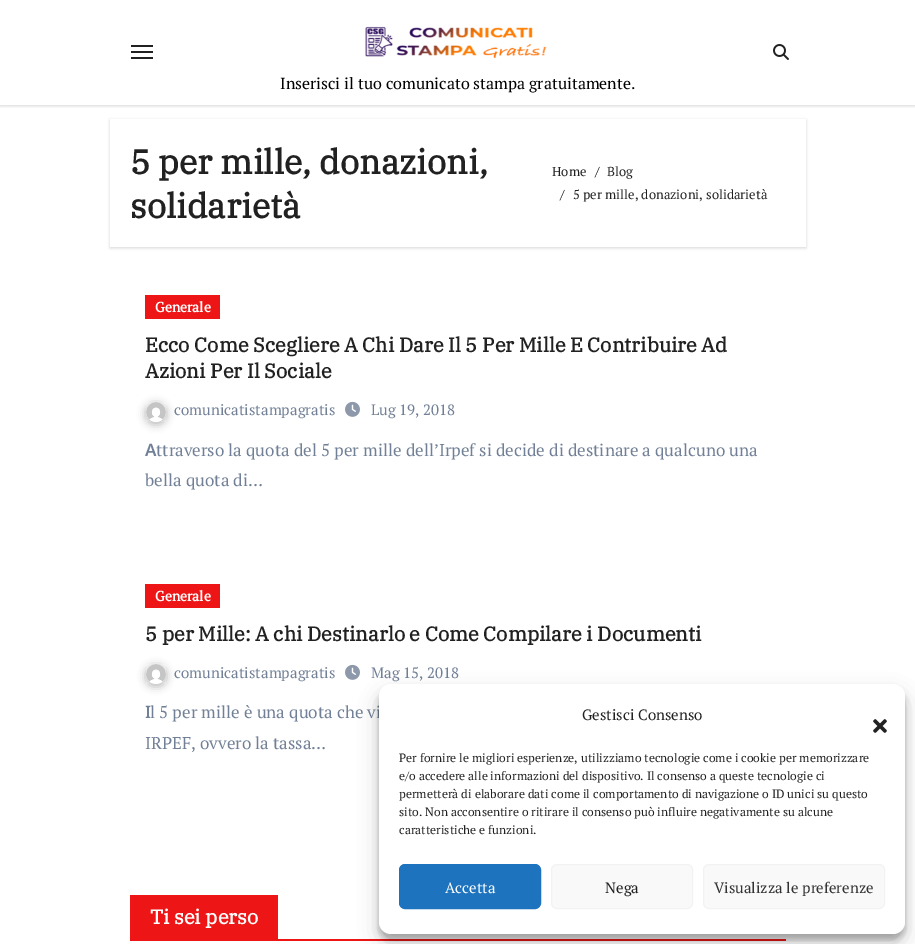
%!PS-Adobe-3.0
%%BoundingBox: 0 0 915 944
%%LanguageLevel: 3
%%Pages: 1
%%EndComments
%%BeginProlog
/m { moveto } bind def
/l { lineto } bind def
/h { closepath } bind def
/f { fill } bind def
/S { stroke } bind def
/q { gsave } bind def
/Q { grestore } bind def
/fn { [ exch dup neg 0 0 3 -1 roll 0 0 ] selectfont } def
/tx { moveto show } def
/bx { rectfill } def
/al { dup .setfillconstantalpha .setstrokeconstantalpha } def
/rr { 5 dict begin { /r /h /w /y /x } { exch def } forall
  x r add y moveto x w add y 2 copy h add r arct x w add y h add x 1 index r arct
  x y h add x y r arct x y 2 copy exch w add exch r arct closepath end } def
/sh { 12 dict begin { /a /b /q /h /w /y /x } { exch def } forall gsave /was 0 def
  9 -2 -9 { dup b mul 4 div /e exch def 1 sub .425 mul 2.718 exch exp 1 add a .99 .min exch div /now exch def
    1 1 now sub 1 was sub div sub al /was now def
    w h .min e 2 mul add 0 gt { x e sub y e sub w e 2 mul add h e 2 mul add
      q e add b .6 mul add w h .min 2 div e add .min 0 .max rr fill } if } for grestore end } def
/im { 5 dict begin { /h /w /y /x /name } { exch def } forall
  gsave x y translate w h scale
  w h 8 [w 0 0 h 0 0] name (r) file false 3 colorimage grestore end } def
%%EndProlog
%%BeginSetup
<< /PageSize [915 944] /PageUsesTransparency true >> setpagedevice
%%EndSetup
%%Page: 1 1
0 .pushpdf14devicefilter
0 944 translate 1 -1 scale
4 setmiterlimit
1 setgray
0 0 915 944 bx
q
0 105 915 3 rectclip
0 setgray
0 1 915 105 0 1.5 0.15 sh
Q
0.129 setgray
131 45 22 2 bx
131 51 22 2 bx
131 57 22 2 bx
(image0.raw) 773 44 16 16 im
(image1.raw) 365 26 182 32 im
/PTSerif-Regular 16 fn
0 setgray
(Inserisci il tuo comunicato stampa gratuitamente.) 280 89 tx
q
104 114 m 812 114 l 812 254 l 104 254 l h 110 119 m 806 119 l 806 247 l 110 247 l h eoclip newpath
110 120 696 128 0 1.5 0.15 sh
Q
/IBMPlexSerif-Bold 34 fn
0.129 setgray
(5 per mille, donazioni,) 130 174 tx
(solidarietà) 130 218 tx
/PTSerif-Regular 13 fn
(Home) 552 176 tx
0 setgray
(/) 595 176 tx
0.129 setgray
(Blog) 607 176 tx
0 setgray
(/) 560 199 tx
0.129 setgray
(5 per mille, donazioni, solidarietà) 573 199 tx
0.929 0.082 0.082 setrgbcolor
145 295 75 24 bx
/PTSerif-Bold 14 fn
1 setgray
(Generale) 155 312 tx
/IBMPlexSerif-Bold 20 fn
0.129 setgray
(Ecco Come Scegliere A Chi Dare Il 5 Per Mille E Contribuire Ad) 145 352 tx
(Azioni Per Il Sociale) 145 378 tx
145 403 22 22 11 4 0.3 sh
(image2.raw) 146 402 20 20 im
/PTSerif-Regular 15 fn
0.443 0.502 0.588 setrgbcolor
(comunicatistampagratis) 174 415 tx
(image3.raw) 345 401 15 16 im
(Lug 19, 2018) 371 415 tx
/NotoSans-SemiBold 17 fn
(A) 145 456 tx
/PTSerif-Regular 17 fn
(ttraverso la quota del 5 per mille dell’Irpef si decide di destinare a qualcuno una) 156 456 tx
(bella quota di…) 145 486 tx
0.929 0.082 0.082 setrgbcolor
145 584 75 24 bx
/PTSerif-Bold 14 fn
1 setgray
(Generale) 155 601 tx
/IBMPlexSerif-Bold 20 fn
0.129 setgray
(5 per Mille: A chi Destinarlo e Come Compilare i Documenti) 145 641 tx
145 665 22 22 11 4 0.3 sh
(image4.raw) 146 664 20 20 im
/PTSerif-Regular 15 fn
0.443 0.502 0.588 setrgbcolor
(comunicatistampagratis) 174 678 tx
(image3.raw) 345 664 15 16 im
(Mag 15, 2018) 371 678 tx
/NotoSans-Medium 17 fn
(I) 145 718 tx
/PTSerif-Regular 17 fn
(l 5 per mille è una quota che vi) 150 718 tx
(IRPEF, ovvero la tassa…) 145 749 tx
0.929 0.082 0.082 setrgbcolor
130 939 656 2 bx
130 895 148 44 bx
/IBMPlexSerif-Bold 20 fn
1 setgray
(Ti sei perso) 150 924 tx
0 setgray
379 690 526 250 12 3 0.23 sh
379 694 526 250 12 10 0.19 sh
1 setgray
379 684 526 250 12 rr f
/PTSerif-Regular 15 fn
0.129 setgray
(Gestisci Consenso) 582 720 tx
(image5.raw) 873 719 14 14 im
/PTSerif-Regular 12 fn
(Per fornire le migliori esperienze, utilizziamo tecnologie come i cookie per memorizzare) 399 762 tx
(e/o accedere alle informazioni del dispositivo. Il consenso a queste tecnologie ci) 399 780 tx
(permetterà di elaborare dati come il comportamento di navigazione o ID unici su questo) 399 798 tx
(sito. Non acconsentire o ritirare il consenso può influire negativamente su alcune) 399 816 tx
(caratteristiche e funzioni.) 399 834 tx
0.118 0.451 0.745 setrgbcolor
399.5 864.5 141 44 5.5 rr q f Q
S
/PTSerif-Regular 15 fn
1 setgray
(Accetta) 445 893 tx
0.976 setgray
551.5 864.5 141 44 5.5 rr q f Q
0.949 setgray
S
0.129 setgray
(Nega) 605 893 tx
0.976 setgray
703.5 864.5 181 44 5.5 rr q f Q
0.949 setgray
S
0.2 setgray
(Visualizza le preferenze) 714 893 tx
.poppdf14devicefilter showpage
%%EOF
